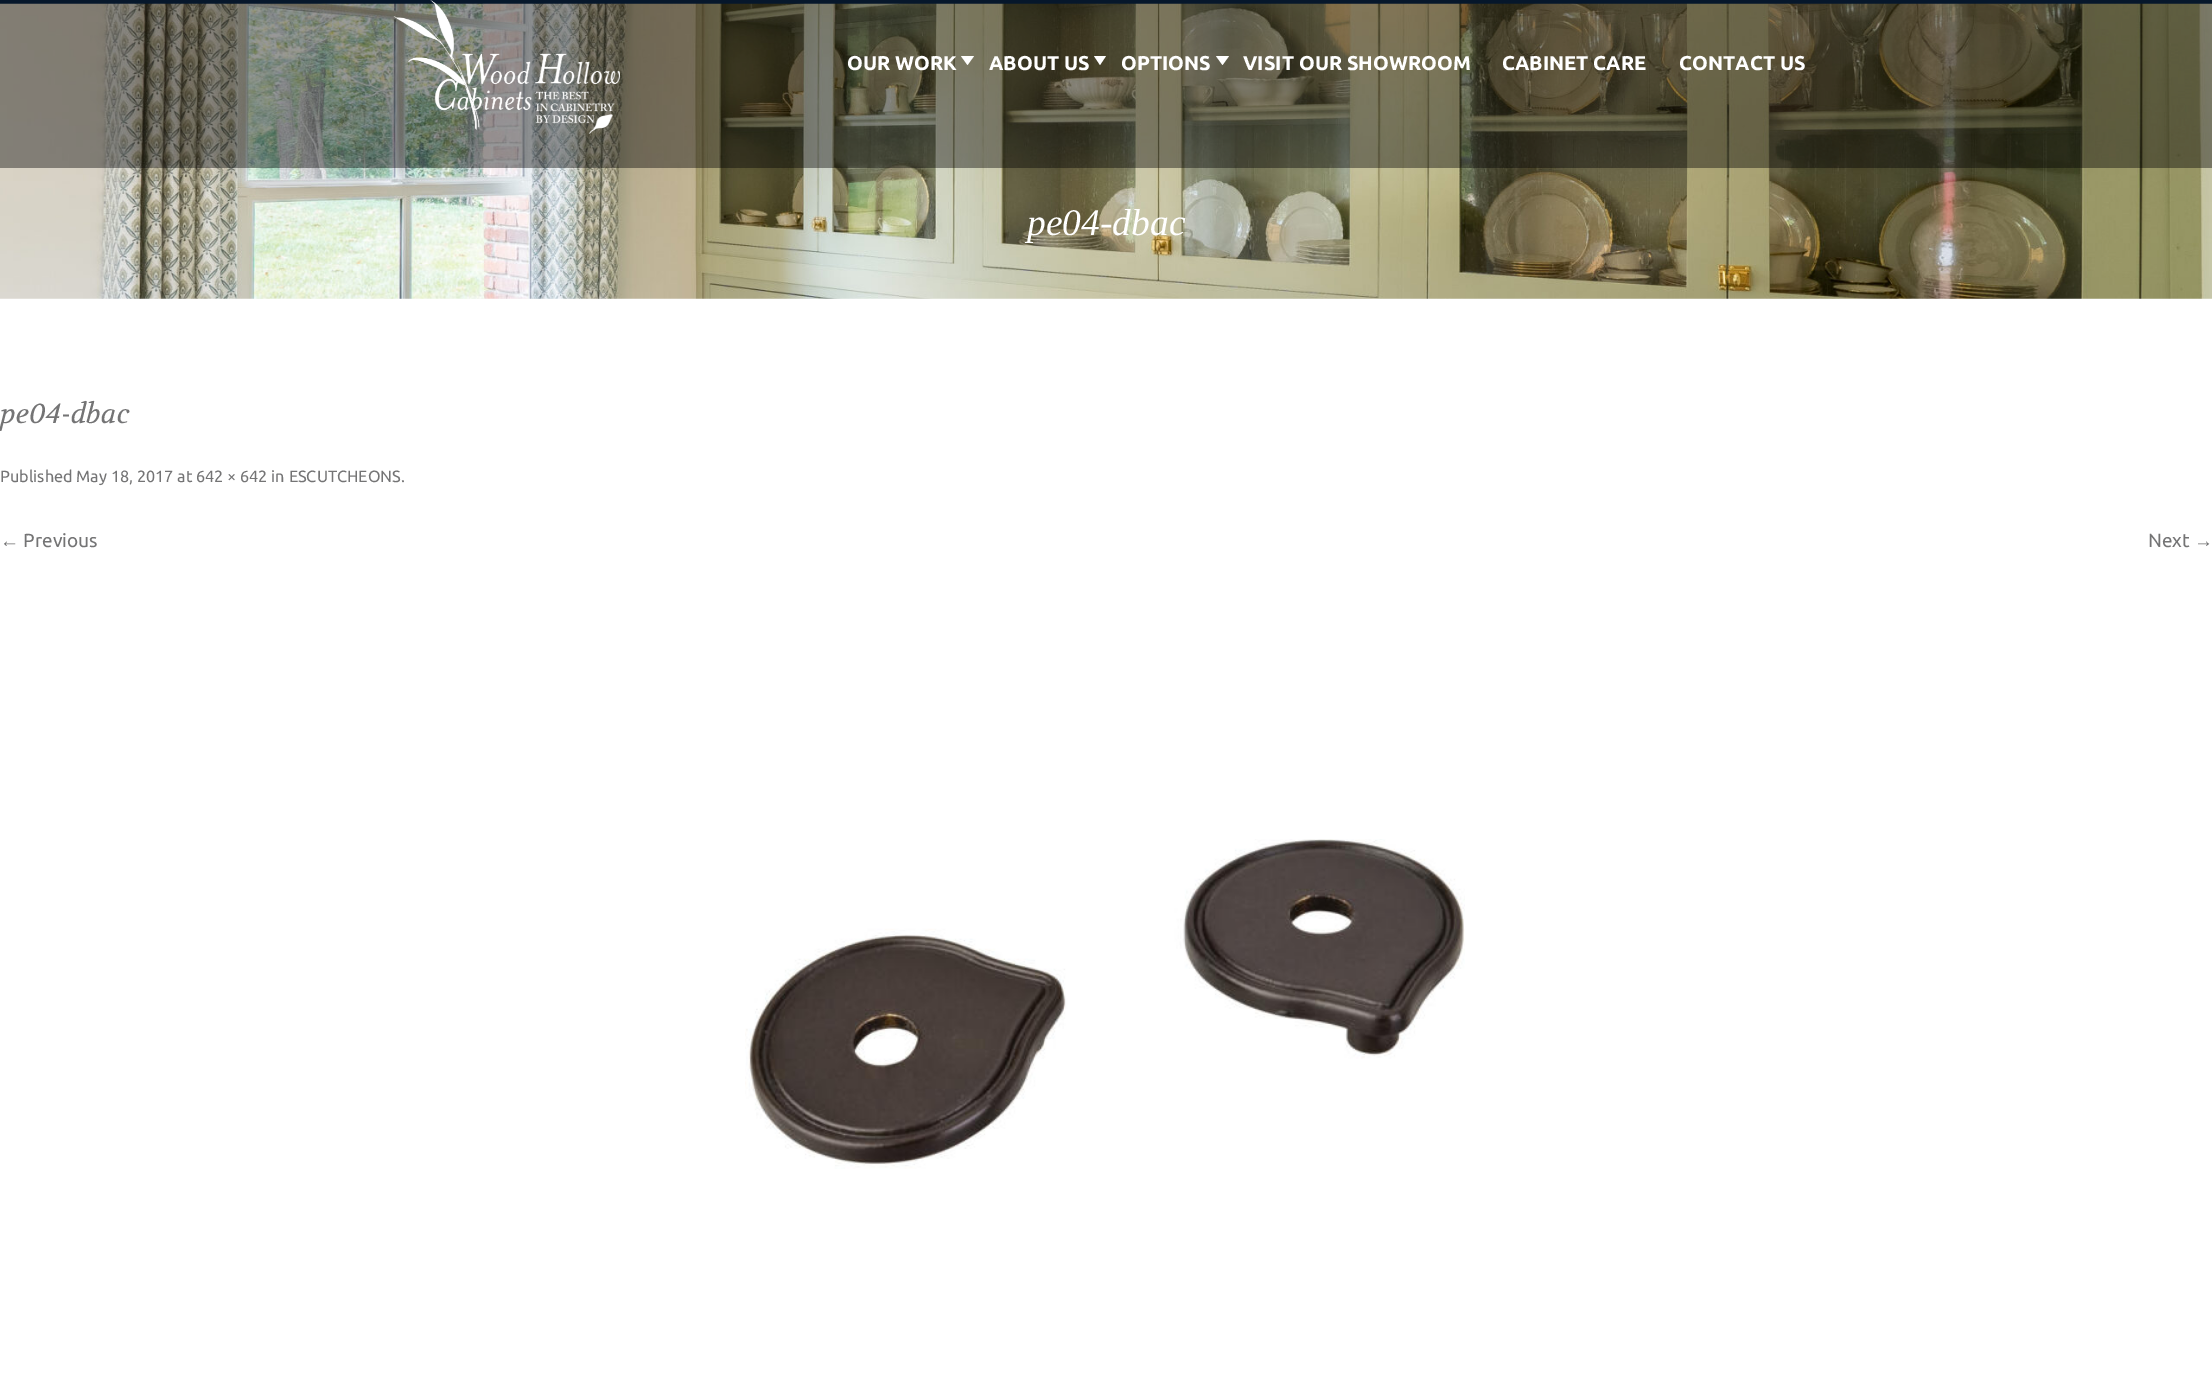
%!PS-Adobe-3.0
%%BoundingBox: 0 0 2212 1373
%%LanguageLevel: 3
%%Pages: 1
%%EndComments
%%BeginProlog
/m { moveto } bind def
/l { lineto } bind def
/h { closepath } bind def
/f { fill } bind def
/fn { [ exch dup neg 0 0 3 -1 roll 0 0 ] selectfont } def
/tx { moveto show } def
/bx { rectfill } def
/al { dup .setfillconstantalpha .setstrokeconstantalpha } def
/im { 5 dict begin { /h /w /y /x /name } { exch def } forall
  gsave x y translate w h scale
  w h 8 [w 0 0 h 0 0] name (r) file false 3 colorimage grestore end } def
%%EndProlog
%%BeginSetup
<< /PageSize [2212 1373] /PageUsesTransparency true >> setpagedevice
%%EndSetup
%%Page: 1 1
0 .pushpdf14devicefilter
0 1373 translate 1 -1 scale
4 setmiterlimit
1 setgray
0 0 2212 1373 bx
0.039 0.149 0.282 setrgbcolor
0 0 2212 4 bx
(image1.raw) 0 3 2212 296 im
0.4 al
0 setgray
0 0 2212 168 bx
1 al
(image0.raw) 393 0 227 134 im
/Ubuntu-Bold 20 fn
1 setgray
(OUR WORK) 847 70 tx
961 56 m 974 56 l 967.5 65 l h f
(ABOUT US) 989 70 tx
1094 56 m 1106 56 l 1100 65 l h f
(OPTIONS) 1121 70 tx
1216 56 m 1229 56 l 1222.5 65 l h f
(VISIT OUR SHOWROOM) 1243 70 tx
(CABINET CARE) 1502 70 tx
(CONTACT US) 1679 70 tx
/LiberationSerif-Italic 37.5 fn
(pe04-dbac) 1027 235 tx
/Volkhov-Italic 27.5 fn
0.455 0.455 0.459 setrgbcolor
(pe04-dbac) 0 423 tx
/Ubuntu-Regular 16.25 fn
(Published May 18, 2017 at 642 × 642 in ESCUTCHEONS.) 0 482 tx
/LiberationSans-Regular 19 fn
(←) 0 547 tx
/Ubuntu-Regular 19 fn
(Previous) 23 547 tx
(Next) 2148 547 tx
/LiberationSans-Regular 19 fn
(→) 2194 547 tx
(image2.raw) 745 839 720 330 im
.poppdf14devicefilter showpage
%%EOF
